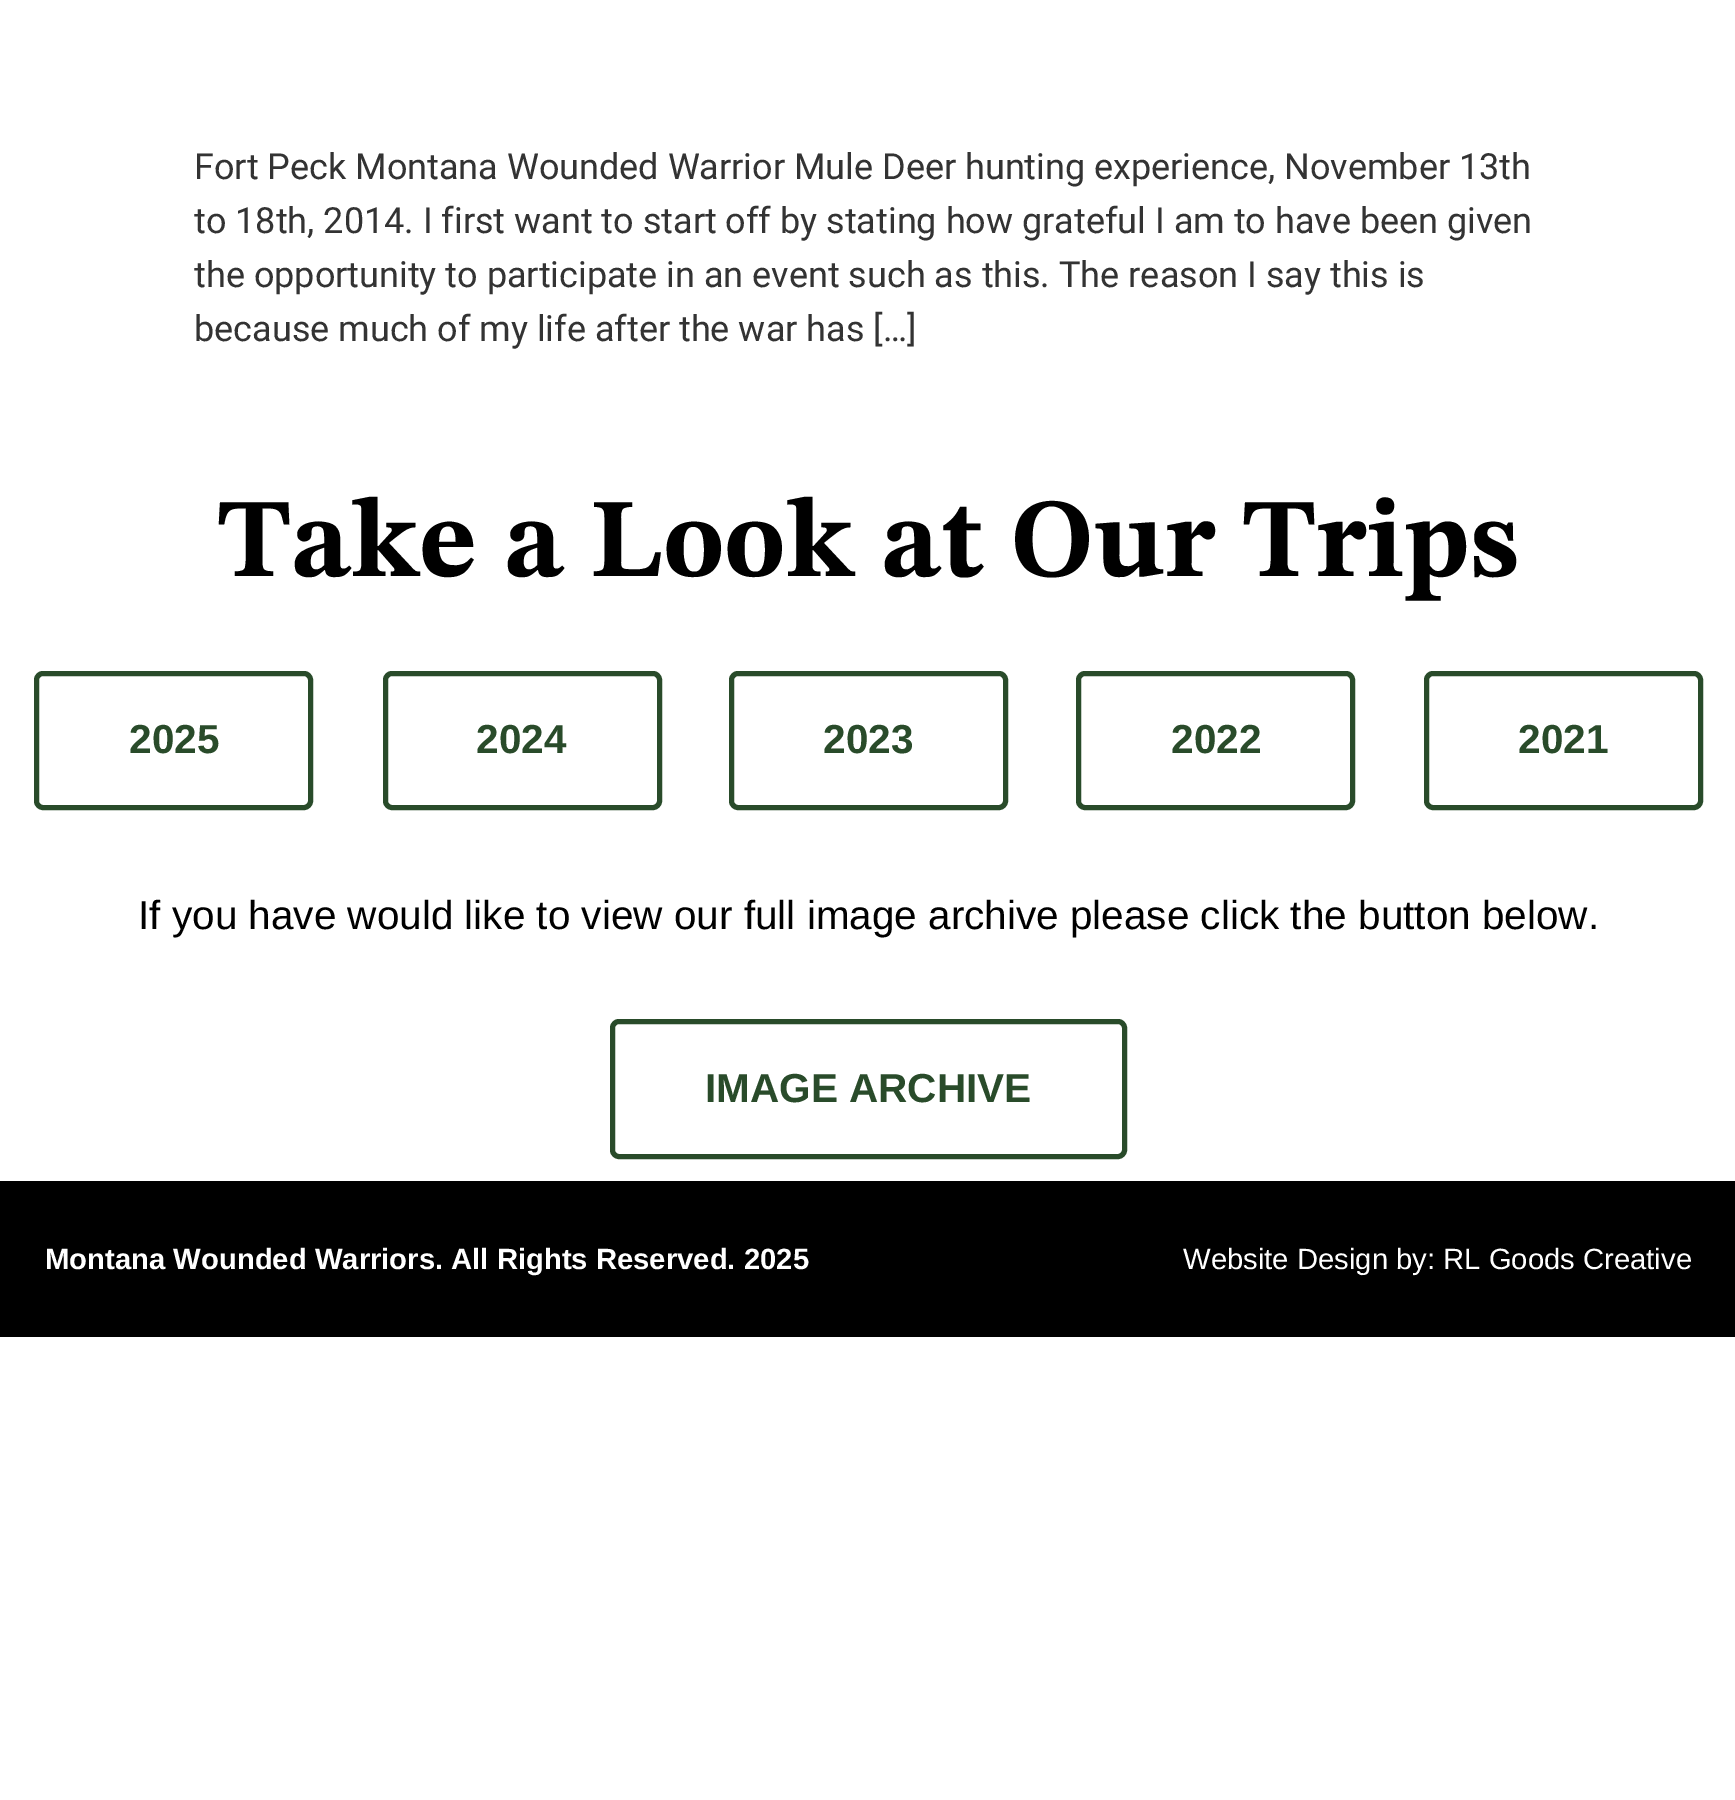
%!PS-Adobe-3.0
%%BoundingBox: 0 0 1735 1800
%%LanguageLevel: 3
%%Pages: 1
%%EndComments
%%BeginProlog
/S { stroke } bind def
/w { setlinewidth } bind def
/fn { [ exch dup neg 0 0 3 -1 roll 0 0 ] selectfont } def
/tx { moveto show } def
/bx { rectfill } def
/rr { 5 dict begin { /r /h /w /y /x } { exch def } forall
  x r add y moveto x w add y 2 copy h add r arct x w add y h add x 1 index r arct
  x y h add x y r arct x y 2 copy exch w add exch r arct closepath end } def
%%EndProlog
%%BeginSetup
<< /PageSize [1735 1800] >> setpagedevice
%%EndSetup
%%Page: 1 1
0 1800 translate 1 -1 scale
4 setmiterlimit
1 setgray
0 0 1735 1800 bx
/Roboto-Regular 36 fn
0.2 setgray
(Fort Peck Montana Wounded Warrior Mule Deer hunting experience, November 13th) 194 179 tx
(to 18th, 2014. I first want to start off by stating how grateful I am to have been given) 194 233 tx
(the opportunity to participate in an event such as this. The reason I say this is) 194 287 tx
(because much of my life after the war has […]) 194 341 tx
/STIXTwoText-Bold 112.5 fn
0 setgray
(Take a Look at Our Trips) 217 576 tx
0.161 0.294 0.165 setrgbcolor
5 w
36.5 673.5 274 134 6.5 rr S
/LiberationSans-Bold 40.5 fn
(2025) 129 753 tx
385.5 673.5 274 134 6.5 rr S
(2024) 476 753 tx
731.5 673.5 274 134 6.5 rr S
(2023) 823 753 tx
1078.5 673.5 274 134 6.5 rr S
(2022) 1171 753 tx
1426.5 673.5 274 134 6.5 rr S
(2021) 1518 753 tx
/LiberationSans-Regular 40.5 fn
0 setgray
(If you have would like to view our full image archive please click the button below.) 138 929 tx
0.161 0.294 0.165 setrgbcolor
612.5 1021.5 512 135 6.5 rr S
/LiberationSans-Bold 40.5 fn
(IMAGE ARCHIVE) 705 1102 tx
0 setgray
0 1181 1735 156 bx
/LiberationSans-Bold 29.25 fn
1 setgray
(Montana Wounded Warriors. All Rights Reserved. 2025) 45 1269 tx
/LiberationSans-Regular 29.25 fn
(Website Design by: RL Goods Creative) 1183 1269 tx
showpage
%%EOF
